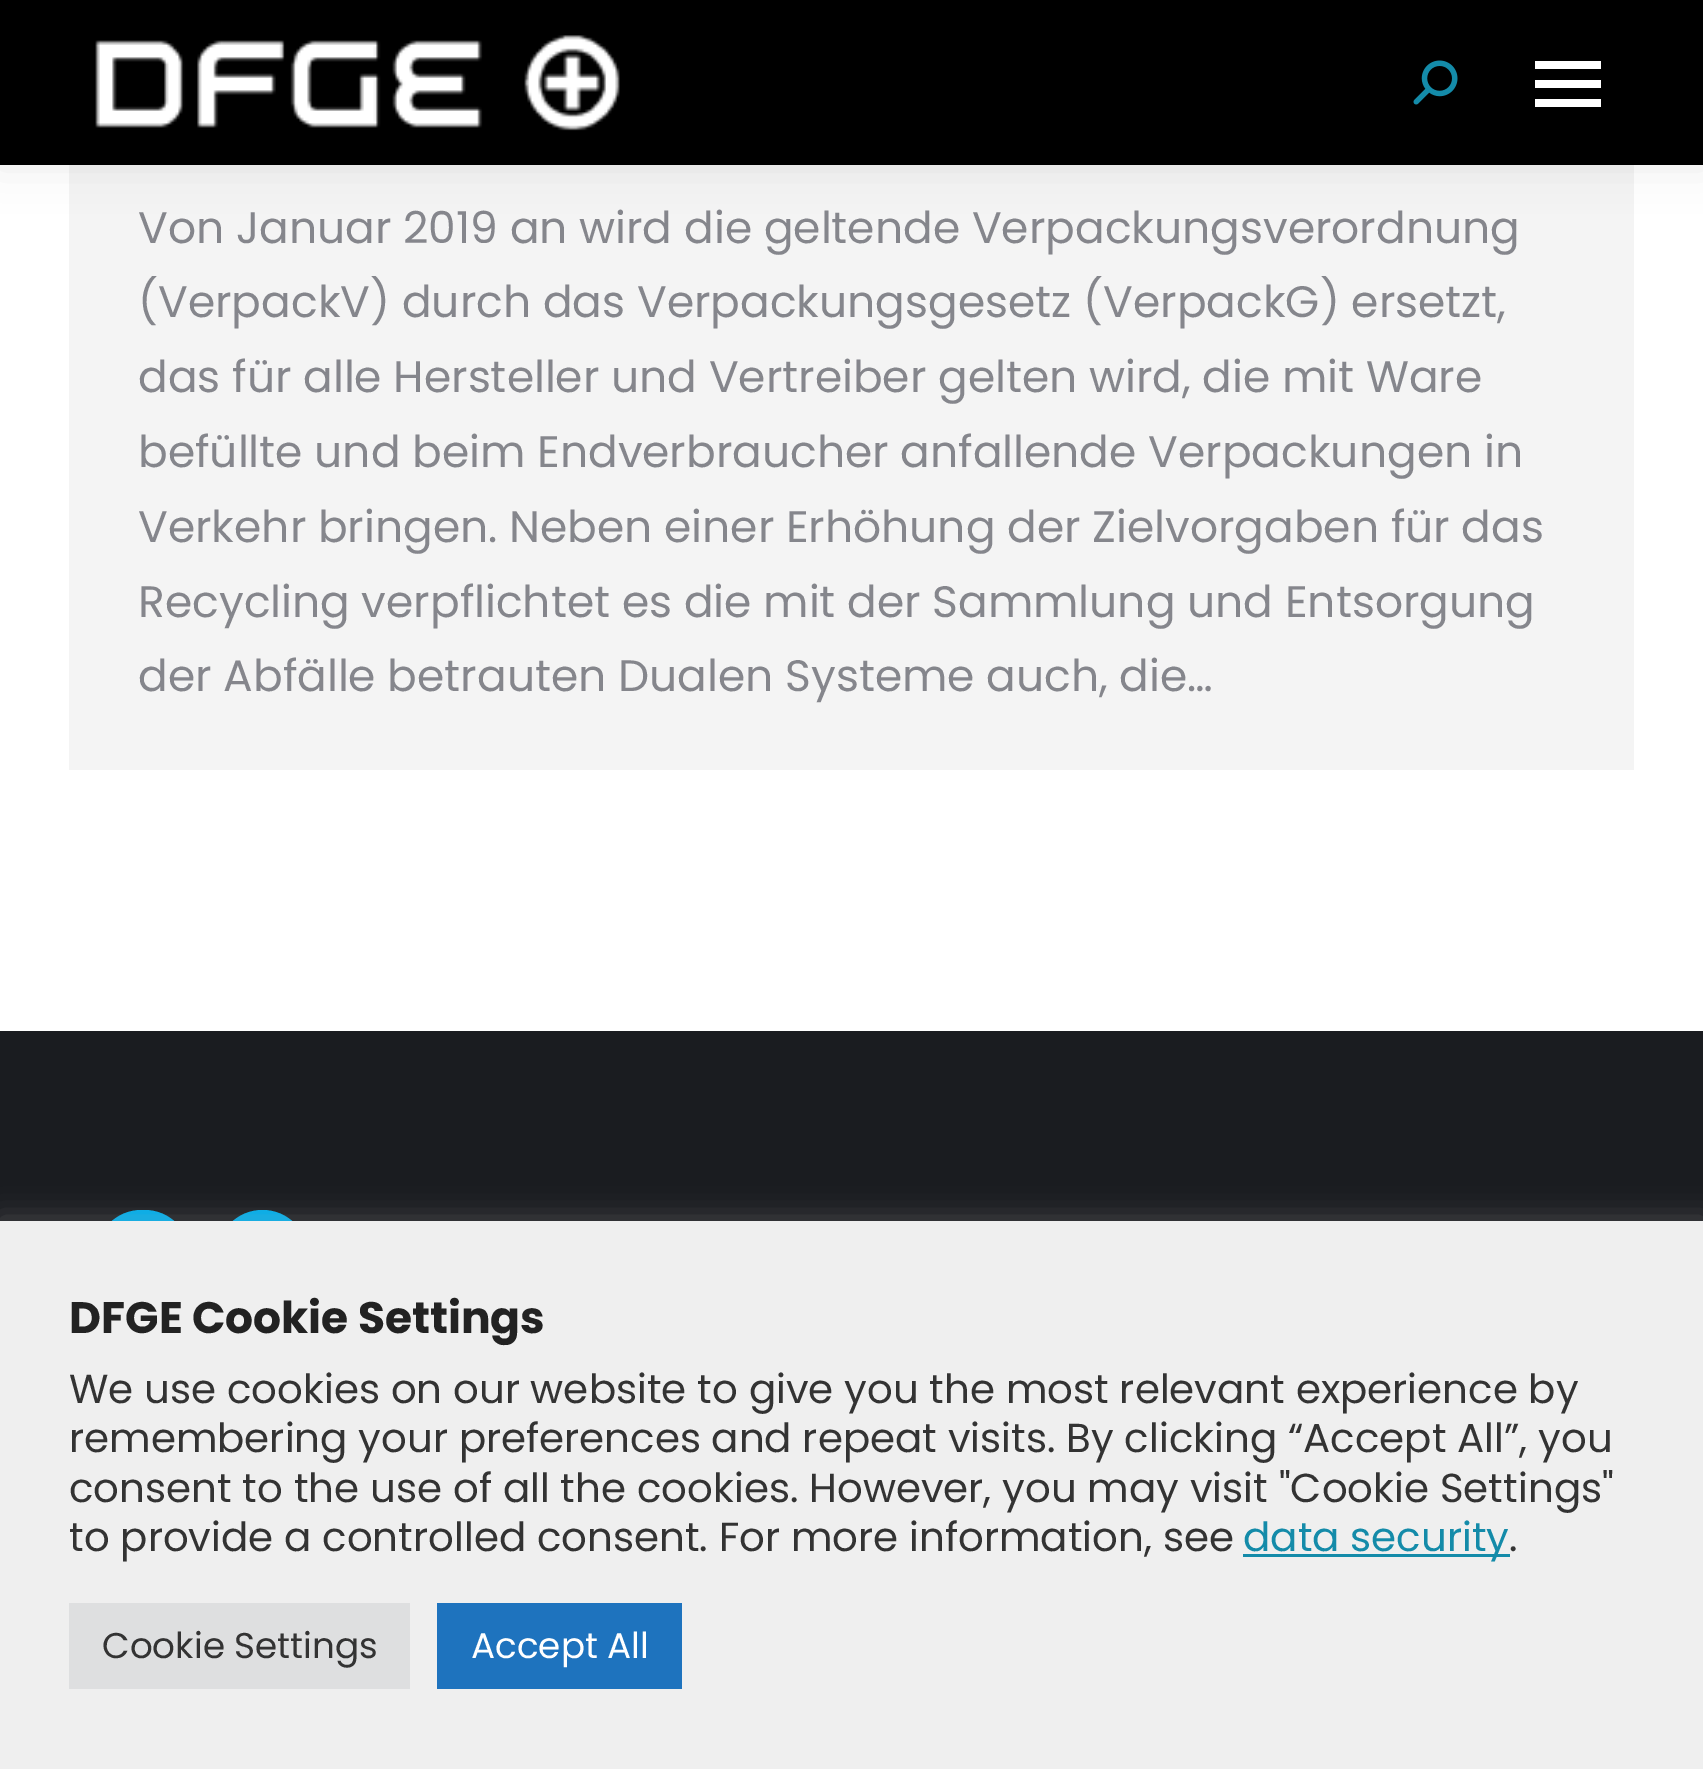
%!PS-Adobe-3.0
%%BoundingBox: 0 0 1703 1769
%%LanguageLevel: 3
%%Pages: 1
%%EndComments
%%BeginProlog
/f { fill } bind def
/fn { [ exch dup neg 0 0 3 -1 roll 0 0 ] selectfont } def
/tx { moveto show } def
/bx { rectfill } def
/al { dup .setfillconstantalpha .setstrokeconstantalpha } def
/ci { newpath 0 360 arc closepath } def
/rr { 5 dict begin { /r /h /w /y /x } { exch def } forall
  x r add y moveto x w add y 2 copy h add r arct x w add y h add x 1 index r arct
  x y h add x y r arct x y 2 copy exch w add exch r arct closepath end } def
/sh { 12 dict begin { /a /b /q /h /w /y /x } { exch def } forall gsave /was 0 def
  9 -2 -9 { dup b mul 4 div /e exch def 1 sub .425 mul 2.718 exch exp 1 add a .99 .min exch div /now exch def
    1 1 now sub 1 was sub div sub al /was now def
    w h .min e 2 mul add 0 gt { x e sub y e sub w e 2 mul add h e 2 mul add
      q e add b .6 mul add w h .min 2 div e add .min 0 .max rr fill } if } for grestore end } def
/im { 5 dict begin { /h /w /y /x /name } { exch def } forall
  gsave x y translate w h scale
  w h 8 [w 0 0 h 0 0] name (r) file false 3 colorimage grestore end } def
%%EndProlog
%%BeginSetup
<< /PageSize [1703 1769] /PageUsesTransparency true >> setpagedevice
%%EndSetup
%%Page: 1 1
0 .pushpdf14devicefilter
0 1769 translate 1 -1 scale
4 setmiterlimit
1 setgray
0 0 1703 1769 bx
0.957 setgray
69 165 1565 605 bx
0 setgray
-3 -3 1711 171 0 20.5 0.07 sh
0 0 1703 165 bx
(image0.raw) 95 35 525 96 im
(image1.raw) 1413 60 45 45 im
1 setgray
1535 61 66 8 bx
1535 80 66 8 bx
1535 99 66 8 bx
/Poppins-Regular 44 fn
0.522 0.525 0.549 setrgbcolor
(Von Januar 2019 an wird die geltende Verpackungsverordnung) 138 243 tx
(\(VerpackV\) durch das Verpackungsgesetz \(VerpackG\) ersetzt,) 138 317 tx
(das für alle Hersteller und Vertreiber gelten wird, die mit Ware) 138 392 tx
(befüllte und beim Endverbraucher anfallende Verpackungen in) 138 467 tx
(Verkehr bringen. Neben einer Erhöhung der Zielvorgaben für das) 138 542 tx
(Recycling verpflichtet es die mit der Sammlung und Entsorgung) 138 617 tx
(der Abfälle betrauten Dualen Systeme auch, die…) 138 691 tx
0.102 0.11 0.125 setrgbcolor
0 1031 1703 190 bx
0 0.678 0.918 setrgbcolor
96 1210 94 91 45.5 rr f
262.5 1255.5 45.5 ci f
0.675 0.671 0.671 setrgbcolor
0 1218 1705 550 0 14 0.3 sh
0.937 setgray
0 1221 1703 548 bx
/Poppins-Bold 44 fn
0.133 setgray
(DFGE Cookie Settings) 69 1333 tx
/Poppins-Regular 40.35 fn
0.2 setgray
(We use cookies on our website to give you the most relevant experience by) 69 1403 tx
(remembering your preferences and repeat visits. By clicking “Accept All”, you) 69 1452 tx
(consent to the use of all the cookies. However, you may visit "Cookie Settings") 69 1502 tx
(to provide a controlled consent. For more information, see) 69 1551 tx
0.078 0.545 0.663 setrgbcolor
1243 1554 267 3 bx
(data security) 1243 1551 tx
0.2 setgray
(.) 1509 1551 tx
0.871 0.875 0.878 setrgbcolor
69 1603 341 86 bx
/Poppins-Regular 35.75 fn
0.2 setgray
(Cookie Settings) 102 1658 tx
0.118 0.451 0.745 setrgbcolor
437 1603 245 86 bx
1 setgray
(Accept All) 471 1658 tx
.poppdf14devicefilter showpage
%%EOF
